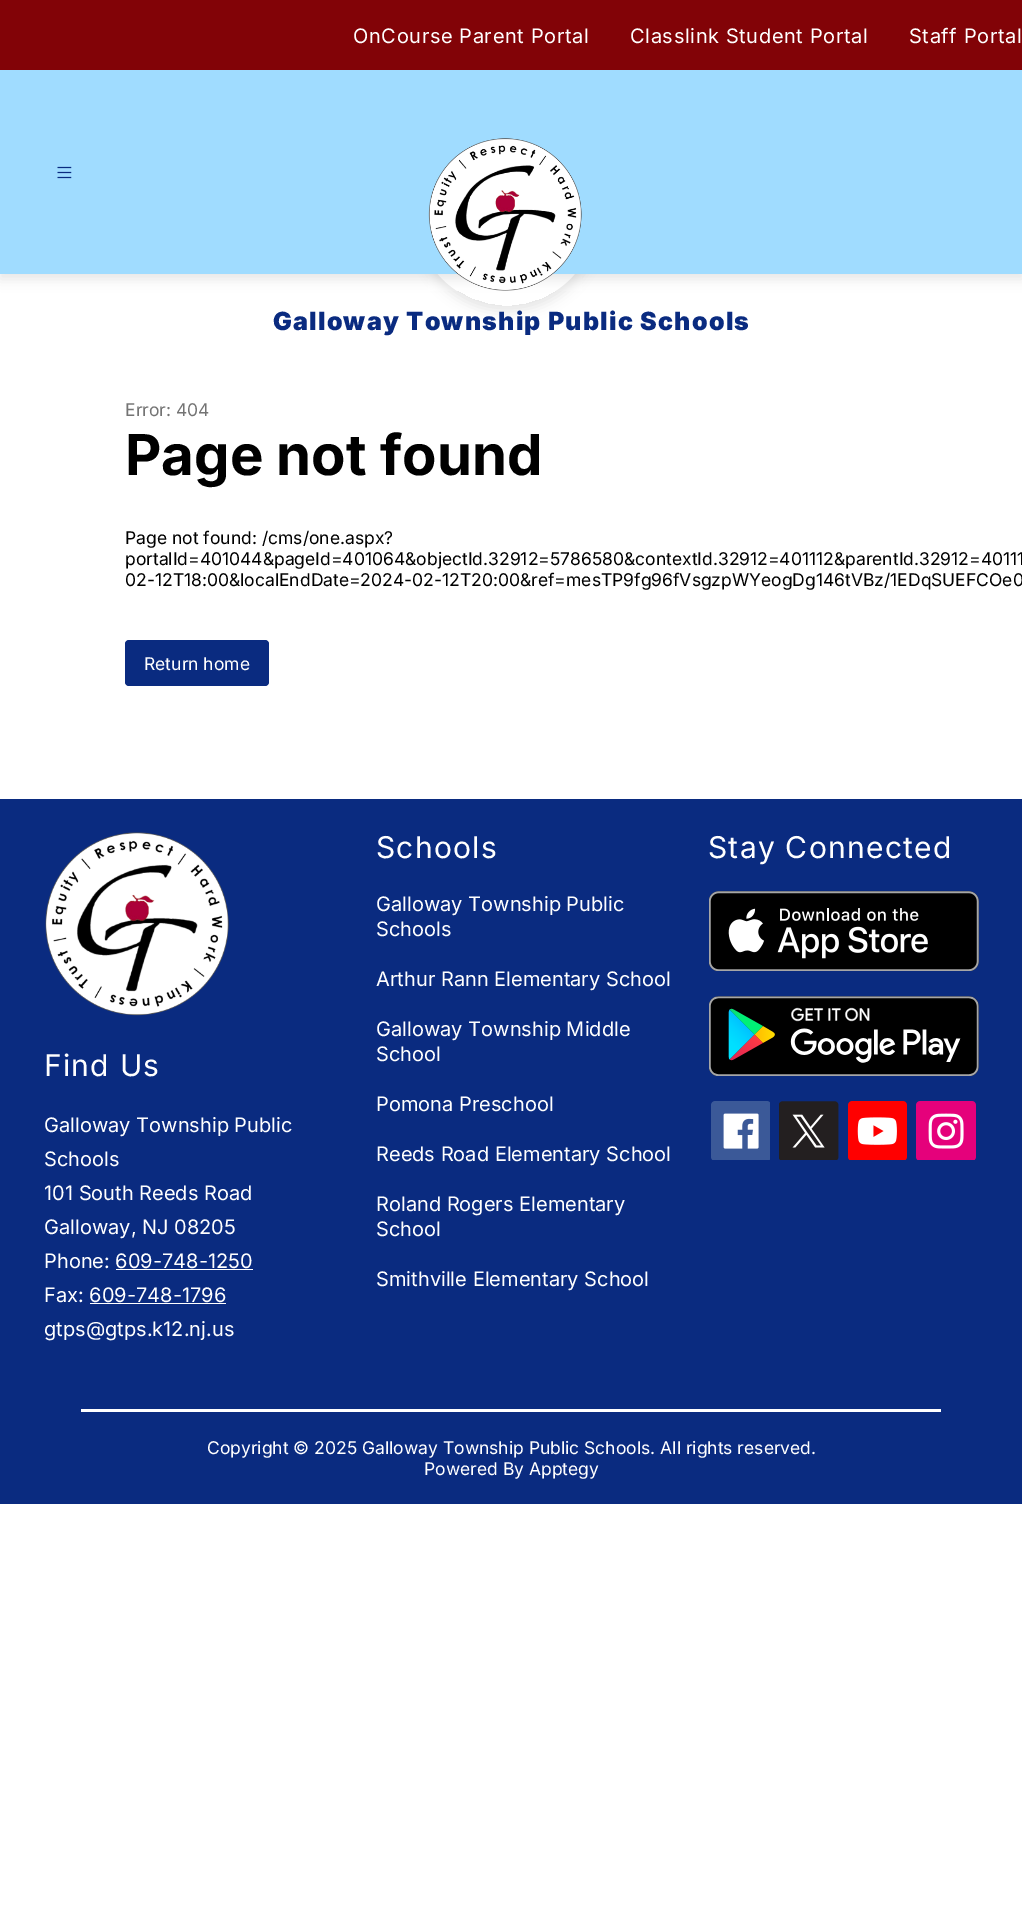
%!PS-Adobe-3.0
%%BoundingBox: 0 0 1022 1908
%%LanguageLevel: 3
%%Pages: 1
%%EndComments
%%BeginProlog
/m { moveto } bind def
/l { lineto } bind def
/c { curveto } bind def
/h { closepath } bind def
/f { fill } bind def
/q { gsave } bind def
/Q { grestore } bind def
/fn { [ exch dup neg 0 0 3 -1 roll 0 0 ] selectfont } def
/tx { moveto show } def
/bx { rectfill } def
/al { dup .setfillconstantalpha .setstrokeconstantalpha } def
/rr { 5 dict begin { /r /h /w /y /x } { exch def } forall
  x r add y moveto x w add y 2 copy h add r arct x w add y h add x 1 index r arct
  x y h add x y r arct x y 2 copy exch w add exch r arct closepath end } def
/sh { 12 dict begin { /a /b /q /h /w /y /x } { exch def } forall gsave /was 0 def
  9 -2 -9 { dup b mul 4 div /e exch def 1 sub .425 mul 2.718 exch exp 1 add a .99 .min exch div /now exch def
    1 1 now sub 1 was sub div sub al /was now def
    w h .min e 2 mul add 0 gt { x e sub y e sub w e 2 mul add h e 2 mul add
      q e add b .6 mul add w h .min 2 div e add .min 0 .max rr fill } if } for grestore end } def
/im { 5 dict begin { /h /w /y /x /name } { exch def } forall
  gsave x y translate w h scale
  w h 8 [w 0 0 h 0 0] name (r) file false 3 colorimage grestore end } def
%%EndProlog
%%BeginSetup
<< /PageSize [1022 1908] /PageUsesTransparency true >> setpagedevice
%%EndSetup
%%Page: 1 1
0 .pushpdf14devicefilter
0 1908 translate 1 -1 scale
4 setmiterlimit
1 setgray
0 0 1022 1908 bx
0 setgray
0 5 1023 274 0 6 0.1 sh
0.51 0.012 0.027 setrgbcolor
0 0 1022 70 bx
/Inter-Regular 20 fn
1 setgray
353 43 m 0.6 0 (OnCourse Parent Portal) ashow
630 43 m 0.6 0 (Classlink Student Portal) ashow
909 43 m 0.6 0 (Staff Portal) ashow
q
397 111 m 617 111 l 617 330 l 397 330 l h 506.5 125 m 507.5 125 l 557.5 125 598 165.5 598 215.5 c 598 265.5 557.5 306 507.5 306 c 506.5 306 l 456.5 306 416 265.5 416 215.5 c 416 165.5 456.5 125 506.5 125 c h eoclip newpath
0 setgray
416 130 182 181 90.5 6 0.1 sh
Q
0.627 0.863 1 setrgbcolor
0 70 1022 204 bx
(image0.raw) 57 166 15 13 im
(image1.raw) 428 138 154 153 im
/Inter-Black 25 fn
0.039 0.169 0.502 setrgbcolor
273 330 m 1.25 0 (Galloway Township Public Schools) ashow
/Inter-Regular 17.5 fn
0.455 setgray
(Error: 404) 125 416 tx
/Inter-Bold 56.25 fn
0 setgray
(Page not found) 125 475 tx
/Inter-Regular 17.5 fn
(Page not found: /cms/one.aspx?) 125 544 tx
(portalId=401044&pageId=401064&objectId.32912=5786580&contextId.32912=401112&parentId.32912=40111) 125 565 tx
(02-12T18:00&localEndDate=2024-02-12T20:00&ref=mesTP9fg96fVsgzpWYeogDg146tVBz/1EDqSUEFCOe0) 125 586 tx
0.039 0.169 0.502 setrgbcolor
125 640 144 46 4 rr f
1 setgray
(Return home) 144 670 tx
0.039 0.169 0.502 setrgbcolor
0 799 1022 705 bx
/Inter-Regular 30 fn
1 setgray
376 858 m 1.25 0 (Schools) ashow
/Inter-Regular 20 fn
(Galloway Township Public) 376 911 tx
(Schools) 376 936 tx
(Arthur Rann Elementary School) 376 986 tx
(Galloway Township Middle) 376 1036 tx
(School) 376 1061 tx
(Pomona Preschool) 376 1111 tx
(Reeds Road Elementary School) 376 1161 tx
(Roland Rogers Elementary) 376 1211 tx
(School) 376 1236 tx
(Smithville Elementary School) 376 1286 tx
/Inter-Regular 30 fn
708 858 m 1.25 0 (Stay Connected) ashow
(image2.raw) 709 891 270 80 im
(image3.raw) 709 996 270 80 im
(image4.raw) 711 1101 59 59 im
(image5.raw) 779 1101 60 59 im
(image6.raw) 848 1101 59 59 im
(image7.raw) 916 1101 60 59 im
(image8.raw) 45 832 184 184 im
44 1076 m 1.25 0 (Find Us) ashow
/Inter-Regular 20 fn
(Galloway Township Public) 44 1132 tx
(Schools) 44 1166 tx
(101 South Reeds Road) 44 1200 tx
(Galloway, NJ 08205) 44 1234 tx
(Phone: 609-748-1250) 44 1268 tx
116 1269 137 1 bx
(Fax: 609-748-1796) 44 1302 tx
90 1303 136 1 bx
(gtps@gtps.k12.nj.us) 44 1336 tx
81 1409 860 3 bx
/Inter-Regular 17.5 fn
(Copyright © 2025 Galloway Township Public Schools. All rights reserved.) 207 1454 tx
(Powered By Apptegy) 424 1475 tx
.poppdf14devicefilter showpage
%%EOF
